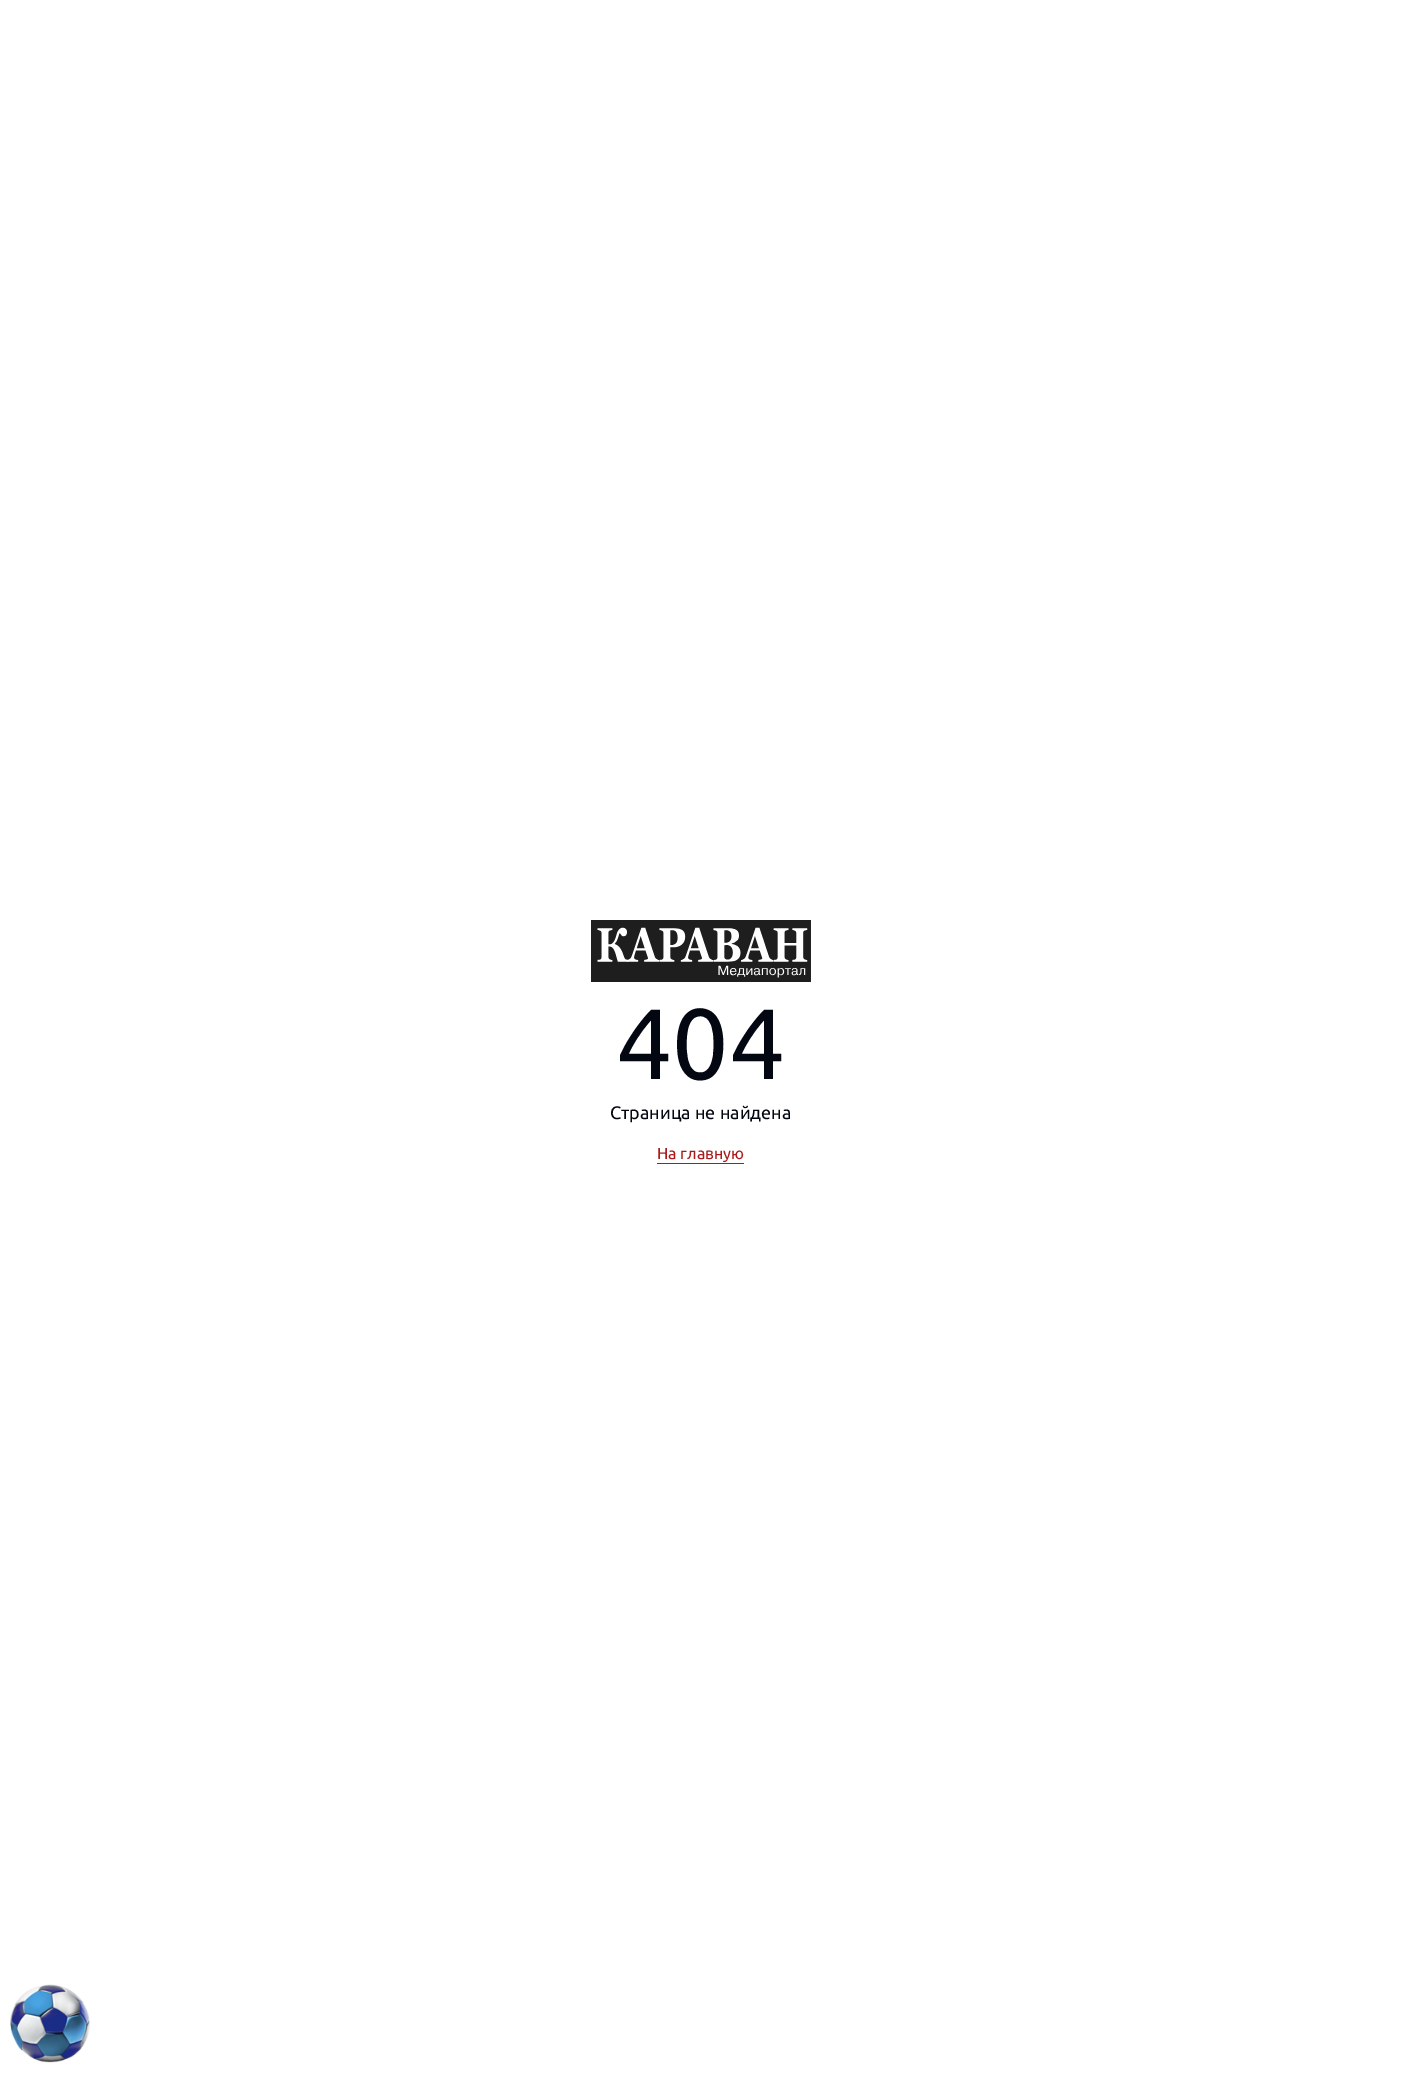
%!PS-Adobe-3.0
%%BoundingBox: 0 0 1401 2083
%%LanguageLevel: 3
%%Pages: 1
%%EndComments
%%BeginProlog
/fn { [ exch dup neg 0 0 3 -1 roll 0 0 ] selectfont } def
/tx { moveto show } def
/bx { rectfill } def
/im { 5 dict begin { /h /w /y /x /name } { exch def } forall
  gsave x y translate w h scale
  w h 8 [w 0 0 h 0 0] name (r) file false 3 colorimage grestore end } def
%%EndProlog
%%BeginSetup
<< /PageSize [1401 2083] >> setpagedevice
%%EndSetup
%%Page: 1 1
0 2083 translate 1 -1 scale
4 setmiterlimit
1 setgray
0 0 1401 2083 bx
(image0.raw) 591 920 220 62 im
/Ubuntu-Regular 100 fn
0.012 0.027 0.071 setrgbcolor
(404) 616 1079 tx
/Ubuntu-Regular 18 fn
(Страница не найдена) 610 1119 tx
/Ubuntu-Regular 16 fn
0.671 0.106 0.106 setrgbcolor
(На главную) 657 1159 tx
657 1163 87 1 bx
(image1.raw) 10 1984 80 79 im
showpage
%%EOF
